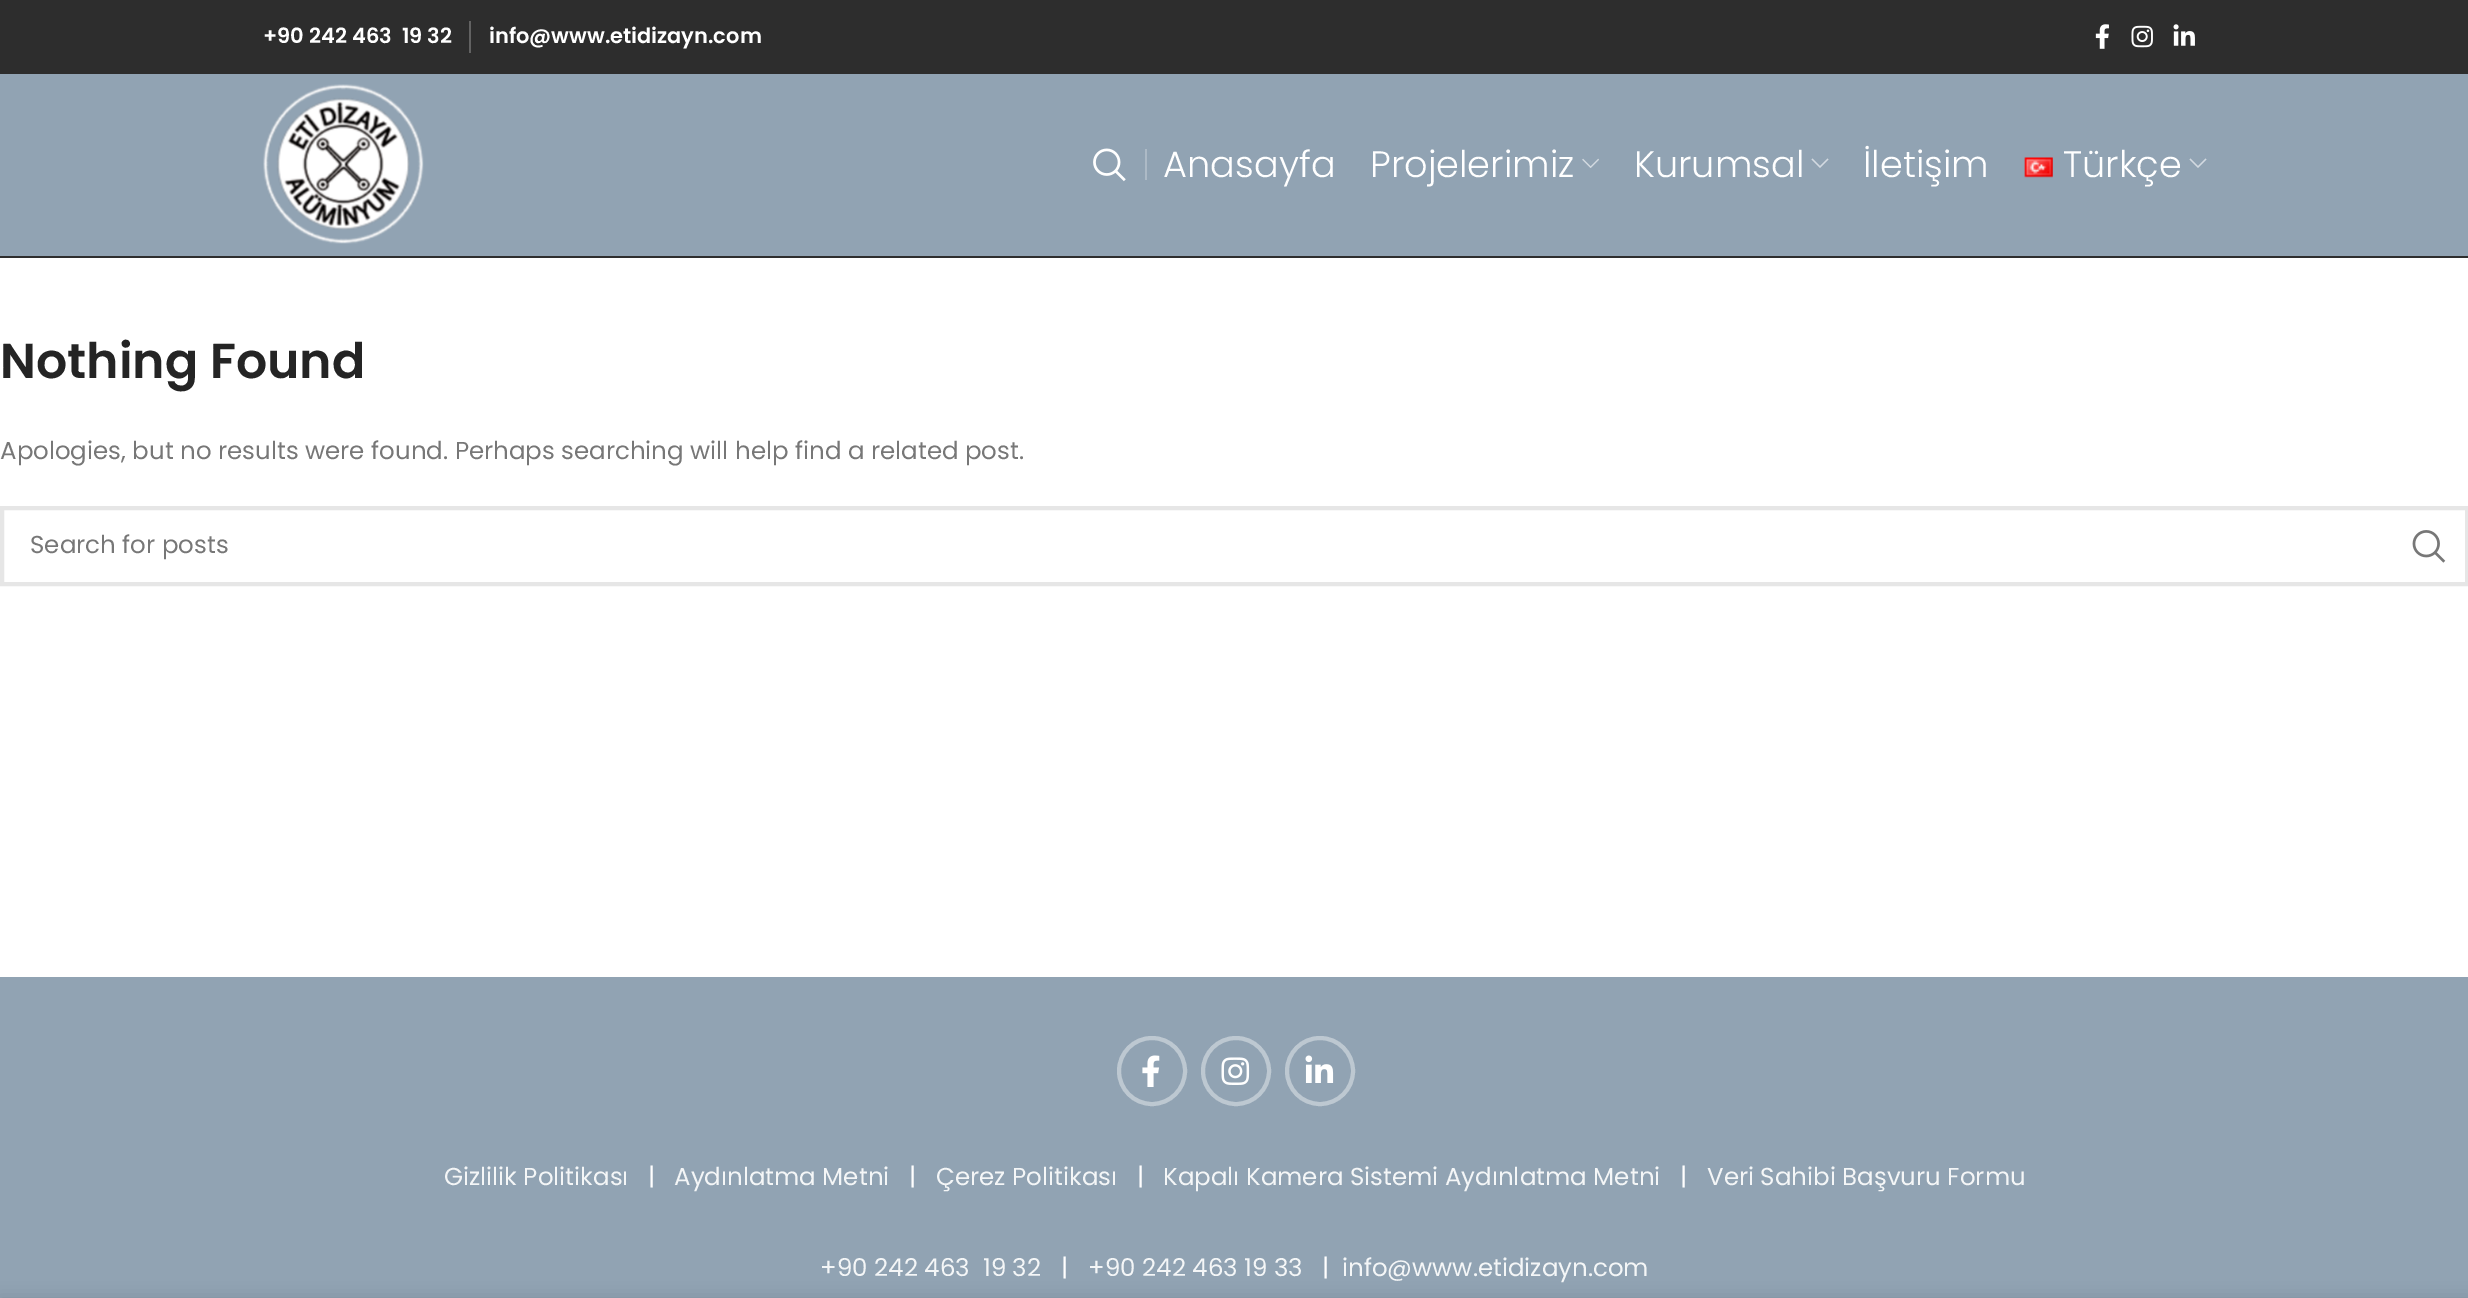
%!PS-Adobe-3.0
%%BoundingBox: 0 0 2468 1298
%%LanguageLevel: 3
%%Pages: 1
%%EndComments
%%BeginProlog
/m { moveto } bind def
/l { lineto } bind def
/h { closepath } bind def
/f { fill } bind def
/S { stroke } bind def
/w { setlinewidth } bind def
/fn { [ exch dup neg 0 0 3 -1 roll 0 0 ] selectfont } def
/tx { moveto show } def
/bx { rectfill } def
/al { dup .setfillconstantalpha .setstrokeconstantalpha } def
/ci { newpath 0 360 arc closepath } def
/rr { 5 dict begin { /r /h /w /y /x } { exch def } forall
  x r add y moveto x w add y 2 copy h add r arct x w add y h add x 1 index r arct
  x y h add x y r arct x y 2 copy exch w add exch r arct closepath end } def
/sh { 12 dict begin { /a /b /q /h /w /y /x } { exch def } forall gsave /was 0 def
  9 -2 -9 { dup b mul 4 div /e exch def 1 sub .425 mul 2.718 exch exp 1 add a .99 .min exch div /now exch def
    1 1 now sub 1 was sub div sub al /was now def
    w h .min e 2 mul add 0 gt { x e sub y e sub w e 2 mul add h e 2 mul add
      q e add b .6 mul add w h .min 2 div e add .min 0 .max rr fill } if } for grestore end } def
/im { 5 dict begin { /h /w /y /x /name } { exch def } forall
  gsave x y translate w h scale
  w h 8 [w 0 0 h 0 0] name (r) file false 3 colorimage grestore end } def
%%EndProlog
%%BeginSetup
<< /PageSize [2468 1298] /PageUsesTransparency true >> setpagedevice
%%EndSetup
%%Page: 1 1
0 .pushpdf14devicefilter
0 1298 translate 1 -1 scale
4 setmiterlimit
1 setgray
0 0 2468 1298 bx
0.176 setgray
0 0 2468 74 bx
/Poppins-SemiBold 21 fn
1 setgray
(+90 242 463  19 32) 263 43 tx
0.384 setgray
469 21 2 32 bx
1 setgray
(info@www.etidizayn.com) 489 43 tx
(image0.raw) 2095 24 14 25 im
(image1.raw) 2131 25 22 23 im
(image2.raw) 2173 24 22 22 im
0.569 0.639 0.702 setrgbcolor
0 74 2468 182 bx
0.18 setgray
0 256 2468 2 bx
(image3.raw) 263 84 161 160 im
(image4.raw) 1093 148 33 34 im
0.678 0.729 0.776 setrgbcolor
1145 149 2 31 bx
/Poppins-Light 36.75 fn
1 setgray
(Anasayfa) 1163 177 tx
(Projelerimiz) 1370 177 tx
(image5.raw) 1582 158 17 10 im
(Kurumsal) 1634 177 tx
0.827 0.855 0.882 setrgbcolor
1827.5 158.5 m 1820 166 l 1812.5 158.5 l 1811.5 159.5 l 1820 168 l 1828.5 159.5 l h f
1 setgray
(İletişim) 1863 177 tx
(image6.raw) 2024 157 29 21 im
(Türkçe) 2063 177 tx
0.827 0.855 0.882 setrgbcolor
2205.5 158.5 m 2198 166 l 2190.5 158.5 l 2189.5 159.5 l 2198 168 l 2206.5 159.5 l h f
/Poppins-SemiBold 49 fn
0.141 setgray
(Nothing Found) 0 378 tx
/Poppins-Regular 24.5 fn
0.467 setgray
(Apologies, but no results were found. Perhaps searching will help find a related post.) 0 459 tx
0.902 setgray
4 w
2 508 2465 76 rectstroke
0.467 setgray
(Search for posts) 30 553 tx
(image7.raw) 2412 530 34 33 im
0.569 0.639 0.702 setrgbcolor
0 977 2468 321 bx
0.741 0.784 0.82 setrgbcolor
1152 1071 33 ci S
(image8.raw) 1142 1055 18 32 im
1236 1071 33 ci S
(image9.raw) 1221 1057 29 28 im
1320 1071 33 ci S
(image10.raw) 1305 1055 29 28 im
0.957 0.965 0.969 setrgbcolor
(Gizlilik Politikası) 444 1185 tx
1 setgray
(|) 648 1185 tx
0.957 0.965 0.969 setrgbcolor
(Aydınlatma Metni) 674 1185 tx
1 setgray
(|) 909 1185 tx
0.957 0.965 0.969 setrgbcolor
(Çerez Politikası) 936 1185 tx
1 setgray
(|) 1137 1185 tx
0.957 0.965 0.969 setrgbcolor
(Kapalı Kamera Sistemi Aydınlatma Metni) 1163 1185 tx
1 setgray
(|) 1680 1185 tx
0.957 0.965 0.969 setrgbcolor
(Veri Sahibi Başvuru Formu) 1707 1185 tx
(+90 242 463  19 32) 820 1276 tx
1 setgray
(|) 1061 1276 tx
0.957 0.965 0.969 setrgbcolor
(+90 242 463 19 33) 1088 1276 tx
1 setgray
(|) 1322 1276 tx
0.957 0.965 0.969 setrgbcolor
(info@www.etidizayn.com) 1342 1276 tx
0 setgray
0 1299 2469 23 0 8 0.14 sh
.poppdf14devicefilter showpage
%%EOF
